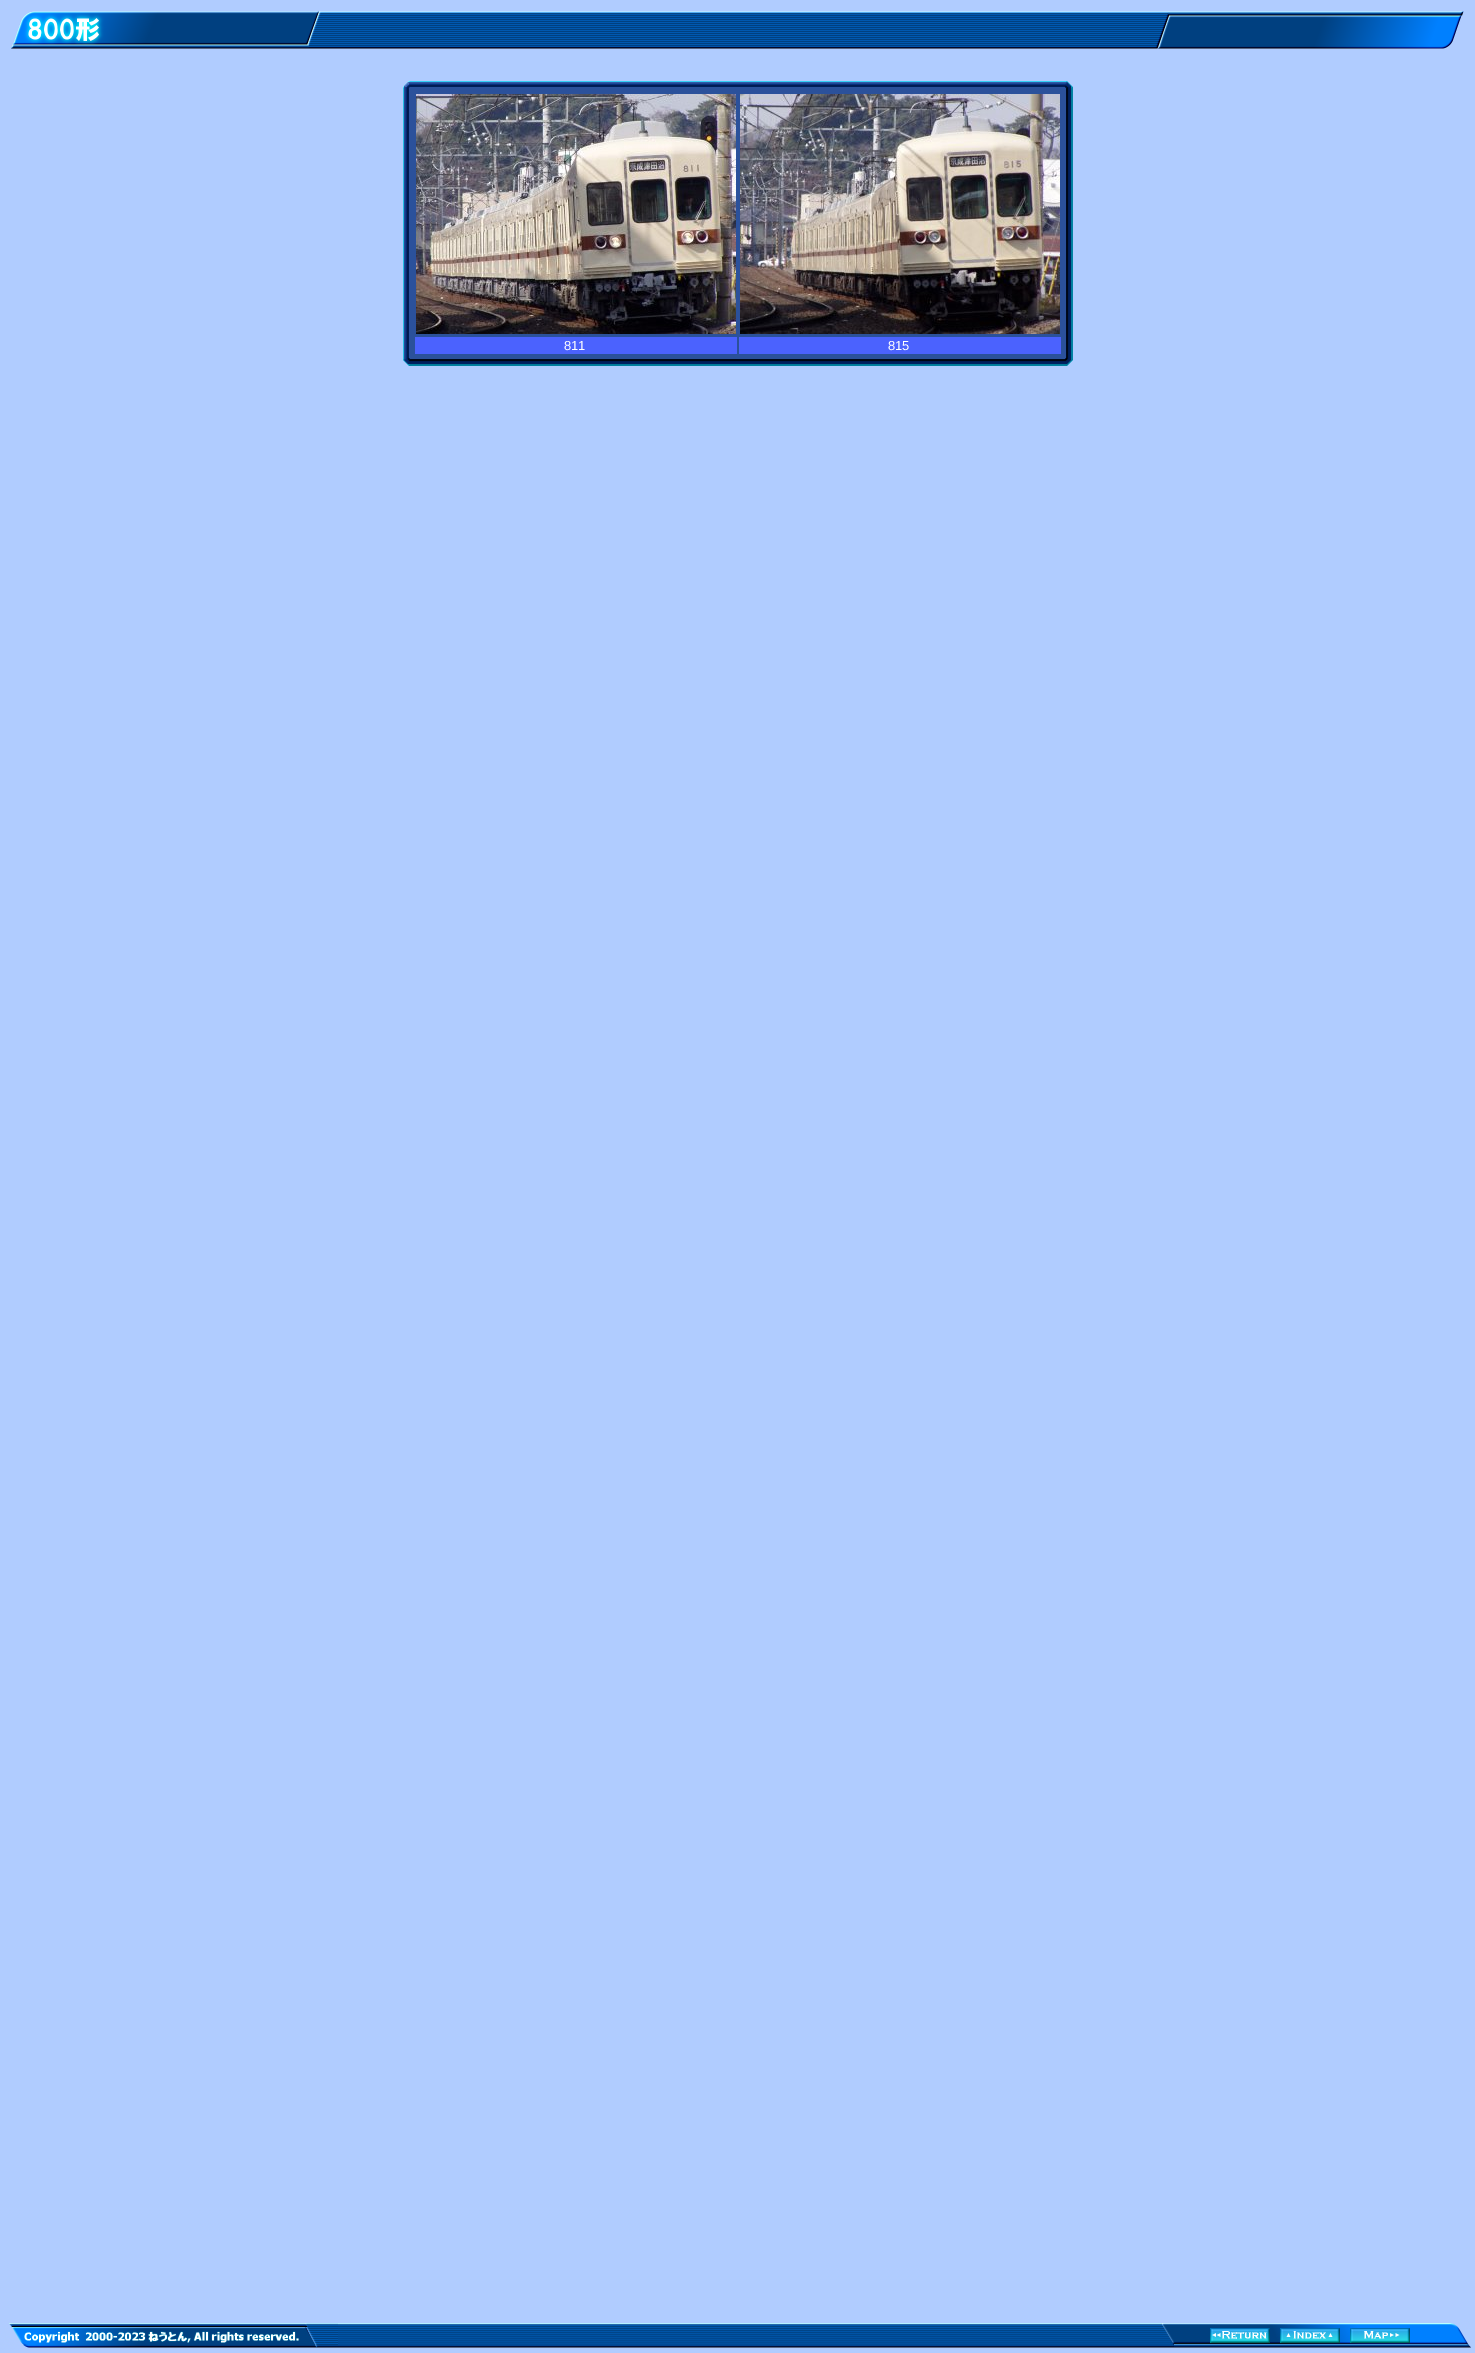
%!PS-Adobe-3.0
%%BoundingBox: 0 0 1475 2353
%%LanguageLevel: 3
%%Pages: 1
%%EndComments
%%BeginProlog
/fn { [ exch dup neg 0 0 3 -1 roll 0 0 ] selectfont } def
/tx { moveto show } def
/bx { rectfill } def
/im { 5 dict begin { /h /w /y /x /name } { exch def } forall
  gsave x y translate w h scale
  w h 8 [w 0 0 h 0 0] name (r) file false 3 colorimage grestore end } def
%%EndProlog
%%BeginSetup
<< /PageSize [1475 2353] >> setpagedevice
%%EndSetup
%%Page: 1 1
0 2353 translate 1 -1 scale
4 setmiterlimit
0.69 0.8 1 setrgbcolor
0 0 1475 2353 bx
(image0.raw) 11 11 327 38 im
(image1.raw) 338 11 799 38 im
(image2.raw) 1137 11 327 38 im
(image3.raw) 403 81 10 10 im
(image4.raw) 413 81 650 10 im
(image5.raw) 1063 81 10 10 im
(image6.raw) 403 91 10 265 im
0.169 0.318 0.608 setrgbcolor
413 91 650 265 bx
(image7.raw) 416 94 320 240 im
(image8.raw) 740 94 320 240 im
0.294 0.384 0.996 setrgbcolor
415 337 322 17 bx
/LiberationSans-Regular 13 fn
1 setgray
(811) 564 350 tx
0.294 0.384 0.996 setrgbcolor
739 337 322 17 bx
1 setgray
(815) 888 350 tx
(image9.raw) 1063 91 10 265 im
(image10.raw) 403 356 10 10 im
(image11.raw) 413 356 650 10 im
(image12.raw) 1063 356 10 10 im
(image13.raw) 9 2323 329 25 im
(image14.raw) 338 2323 807 25 im
(image15.raw) 1145 2323 326 25 im
(image16.raw) 1210 2328 60 15 im
(image17.raw) 1280 2328 60 15 im
(image18.raw) 1350 2328 60 15 im
showpage
%%EOF
